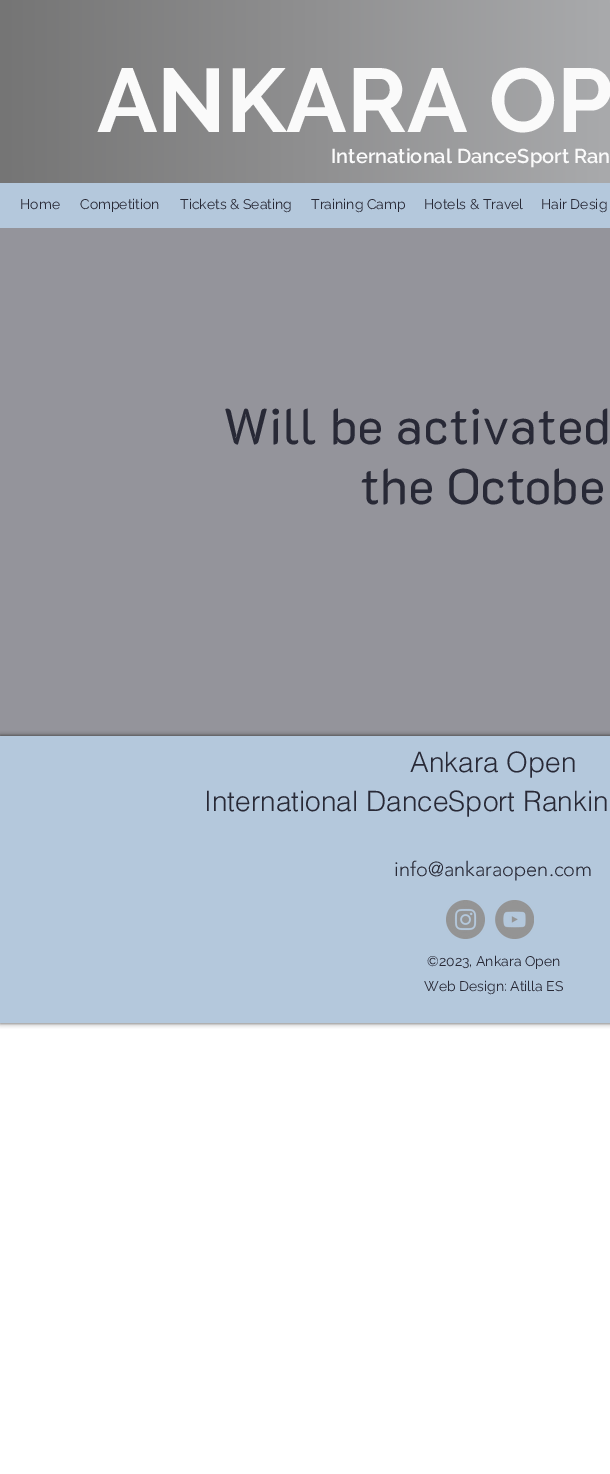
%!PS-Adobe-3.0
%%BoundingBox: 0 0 610 1474
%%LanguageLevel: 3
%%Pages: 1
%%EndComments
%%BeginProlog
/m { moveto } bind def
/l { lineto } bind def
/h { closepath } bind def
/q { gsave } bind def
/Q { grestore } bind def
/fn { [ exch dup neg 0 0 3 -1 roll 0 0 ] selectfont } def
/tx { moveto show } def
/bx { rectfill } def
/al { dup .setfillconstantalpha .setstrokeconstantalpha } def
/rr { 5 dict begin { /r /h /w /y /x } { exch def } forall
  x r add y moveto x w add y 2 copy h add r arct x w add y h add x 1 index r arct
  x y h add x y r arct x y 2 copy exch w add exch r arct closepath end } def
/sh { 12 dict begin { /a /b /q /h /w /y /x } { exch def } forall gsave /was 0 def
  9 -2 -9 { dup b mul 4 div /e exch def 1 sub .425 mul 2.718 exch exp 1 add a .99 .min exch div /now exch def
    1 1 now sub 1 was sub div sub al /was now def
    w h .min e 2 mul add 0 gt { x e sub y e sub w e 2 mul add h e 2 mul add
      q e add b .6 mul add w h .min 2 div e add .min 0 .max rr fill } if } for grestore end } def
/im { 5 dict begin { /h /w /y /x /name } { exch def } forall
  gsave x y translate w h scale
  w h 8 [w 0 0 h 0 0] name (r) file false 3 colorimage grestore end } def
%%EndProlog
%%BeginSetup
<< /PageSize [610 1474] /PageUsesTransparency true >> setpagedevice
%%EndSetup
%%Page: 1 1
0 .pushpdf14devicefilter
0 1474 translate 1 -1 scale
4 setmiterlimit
1 setgray
0 0 610 1474 bx
q 0 0 m 610 0 l 610 183 l 0 183 l h clip newpath
<< /ShadingType 2 /ColorSpace /DeviceRGB /Coords [0 103 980 102] /Extend [true true] /Function << /FunctionType 2 /Domain [0 1] /C0 [0.459 0.459 0.459] /C1 [0.788 0.792 0.804] /N 1 >> >> shfill Q
/Raleway-Bold 90 fn
0.98 setgray
(ANKARA OP) 97 132 tx
/Raleway-SemiBold 20 fn
(International DanceSport Ran) 331 163 tx
0.706 0.784 0.863 setrgbcolor
0 183 610 45 bx
/Raleway-Regular 14 fn
0.157 0.161 0.212 setrgbcolor
(Home) 20 209 tx
(Competition) 80 209 tx
(Tickets & Seating) 180 209 tx
(Training Camp) 311 209 tx
(Hotels & Travel) 424 209 tx
(Hair Desig) 541 209 tx
0.58 0.58 0.608 setrgbcolor
0 228 610 508 bx
/K2D-Regular 50 fn
0.157 0.161 0.212 setrgbcolor
(Will be activated) 223 444 tx
(the Octobe) 360 504 tx
0 setgray
0 736 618 287 0 2.5 0.7 sh
0.706 0.784 0.863 setrgbcolor
0 736 610 287 bx
/helvetica-Light 28 fn
0.157 0.161 0.212 setrgbcolor
(Ankara Open) 410 772 tx
(International DanceSport Rankin) 204 811 tx
/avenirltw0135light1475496-Light 20 fn
(info@ankaraopen.com) 394 876 tx
(image0.raw) 446 900 39 39 im
(image1.raw) 495 900 39 39 im
/Raleway-Regular 14 fn
(©2023, Ankara Open) 427 966 tx
(Web Design: Atilla ES) 424 991 tx
.poppdf14devicefilter showpage
%%EOF
